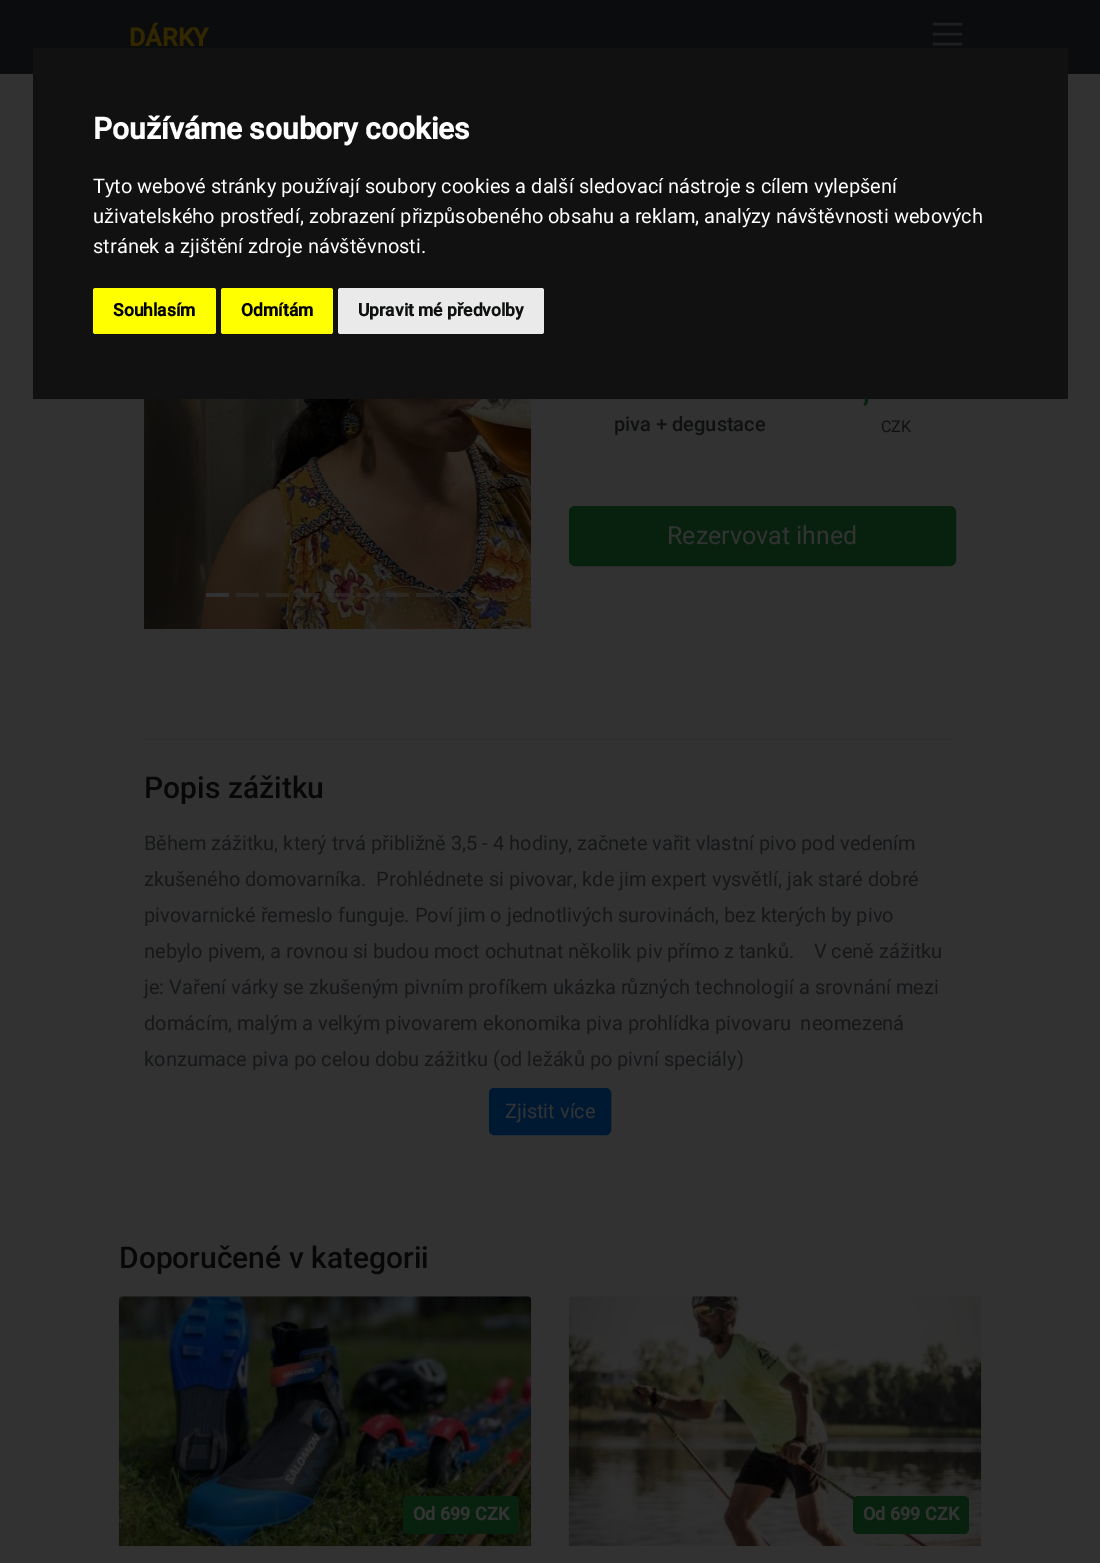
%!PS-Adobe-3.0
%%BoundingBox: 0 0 1100 1563
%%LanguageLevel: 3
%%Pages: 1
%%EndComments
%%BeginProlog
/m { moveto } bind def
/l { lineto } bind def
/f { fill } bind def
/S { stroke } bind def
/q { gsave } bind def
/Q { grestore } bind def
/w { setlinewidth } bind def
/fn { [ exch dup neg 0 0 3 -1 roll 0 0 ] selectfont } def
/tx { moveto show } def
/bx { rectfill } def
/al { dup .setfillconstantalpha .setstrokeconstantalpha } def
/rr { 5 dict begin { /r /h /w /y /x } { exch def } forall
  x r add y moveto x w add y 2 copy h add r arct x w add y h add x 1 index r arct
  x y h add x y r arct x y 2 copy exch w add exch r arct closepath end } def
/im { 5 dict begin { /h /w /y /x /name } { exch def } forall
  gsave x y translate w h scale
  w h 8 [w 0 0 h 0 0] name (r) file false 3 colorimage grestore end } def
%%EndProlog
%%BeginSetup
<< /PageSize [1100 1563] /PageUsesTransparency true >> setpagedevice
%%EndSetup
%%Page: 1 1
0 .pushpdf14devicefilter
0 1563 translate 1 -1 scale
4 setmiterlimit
0.039 0.047 0.051 setrgbcolor
0 0 1100 1563 bx
/Roboto-Bold 25 fn
0.2 0.153 0.004 setrgbcolor
(DÁRKY) 129 46 tx
0.122 0.122 0.125 setrgbcolor
2.5 w
1 setlinecap
934 24 m 961 24 l 934 34 m 961 34 l 934 44 m 961 44 l S
0.196 setgray
0 74 1100 1489 bx
0.067 setgray
33 48 1035 351 bx
/Roboto-Bold 30 fn
1 setgray
(Používáme soubory cookies) 93 139 tx
/Roboto-Regular 20 fn
(Tyto webové stránky používají soubory cookies a další sledovací nástroje s cílem vylepšení) 93 193 tx
(uživatelského prostředí, zobrazení přizpůsobeného obsahu a reklam, analýzy návštěvnosti webových) 93 223 tx
(stránek a zjištění zdroje návštěvnosti.) 93 253 tx
1 1 0 setrgbcolor
93 288 123 46 2.5 rr f
/Roboto-Bold 17.5 fn
0 setgray
(Souhlasím) 113 316 tx
1 1 0 setrgbcolor
221 288 112 46 2.5 rr f
0 setgray
(Odmítám) 241 316 tx
0.918 setgray
338 288 206 46 2.5 rr f
0.059 0.063 0.067 setrgbcolor
(Upravit mé předvolby) 358 316 tx
(image0.raw) 144 399 387 230 im
0.2 setgray
206 593 23 4 bx
0.5 al
236 593 23 4 bx
266 593 23 4 bx
296 593 23 4 bx
326 593 23 4 bx
356 593 23 4 bx
386 593 23 4 bx
416 593 23 4 bx
446 593 23 4 bx
/Roboto-Medium 20 fn
1 al
0.059 0.063 0.067 setrgbcolor
(piva + degustace) 614 431 tx
/Roboto-Bold 25 fn
0.031 0.129 0.055 setrgbcolor
(,) 863 402 tx
/Roboto-Regular 16 fn
0.059 0.063 0.067 setrgbcolor
(CZK) 881 432 tx
0.031 0.129 0.055 setrgbcolor
569.5 506.5 386 59 5.5 rr q f Q
1 w
0 setlinecap
S
/Roboto-Regular 25 fn
0.2 setgray
(Rezervovat ihned) 667 544 tx
0.18 setgray
144 739 812 1 bx
/Roboto-Medium 30 fn
0.027 0.027 0.031 setrgbcolor
(Popis zážitku) 144 798 tx
/Roboto-Regular 20 fn
0.086 0.09 0.098 setrgbcolor
(Během zážitku, který trvá přibližně 3,5 - 4 hodiny, začnete vařit vlastní pivo pod vedením) 144 850 tx
(zkušeného domovarníka.  Prohlédnete si pivovar, kde jim expert vysvětlí, jak staré dobré) 144 886 tx
(pivovarnické řemeslo funguje. Poví jim o jednotlivých surovinách, bez kterých by pivo) 144 922 tx
(nebylo pivem, a rovnou si budou moct ochutnat několik piv přímo z tanků.    V ceně zážitku) 144 958 tx
(je: Vaření várky se zkušeným pivním profíkem ukázka různých technologií a srovnání mezi) 144 994 tx
(domácím, malým a velkým pivovarem ekonomika piva prohlídka pivovaru  neomezená) 144 1030 tx
(konzumace piva po celou dobu zážitku \(od ležáků po pivní speciály\)) 144 1066 tx
0 0.098 0.2 setrgbcolor
489.5 1088.5 121 46 4.5 rr q f Q
S
0.2 setgray
(Zjistit více) 505 1118 tx
/Roboto-Medium 30 fn
0.027 0.027 0.031 setrgbcolor
(Doporučené v kategorii) 119 1268 tx
(image1.raw) 118 1296 414 251 im
0.031 0.129 0.055 setrgbcolor
403 1496 116 38 5 rr f
/Roboto-Bold 18 fn
0.2 setgray
(Od 699 CZK) 413 1520 tx
(image2.raw) 568 1296 414 251 im
0.031 0.129 0.055 setrgbcolor
853 1496 116 38 5 rr f
0.2 setgray
(Od 699 CZK) 863 1520 tx
.poppdf14devicefilter showpage
%%EOF
